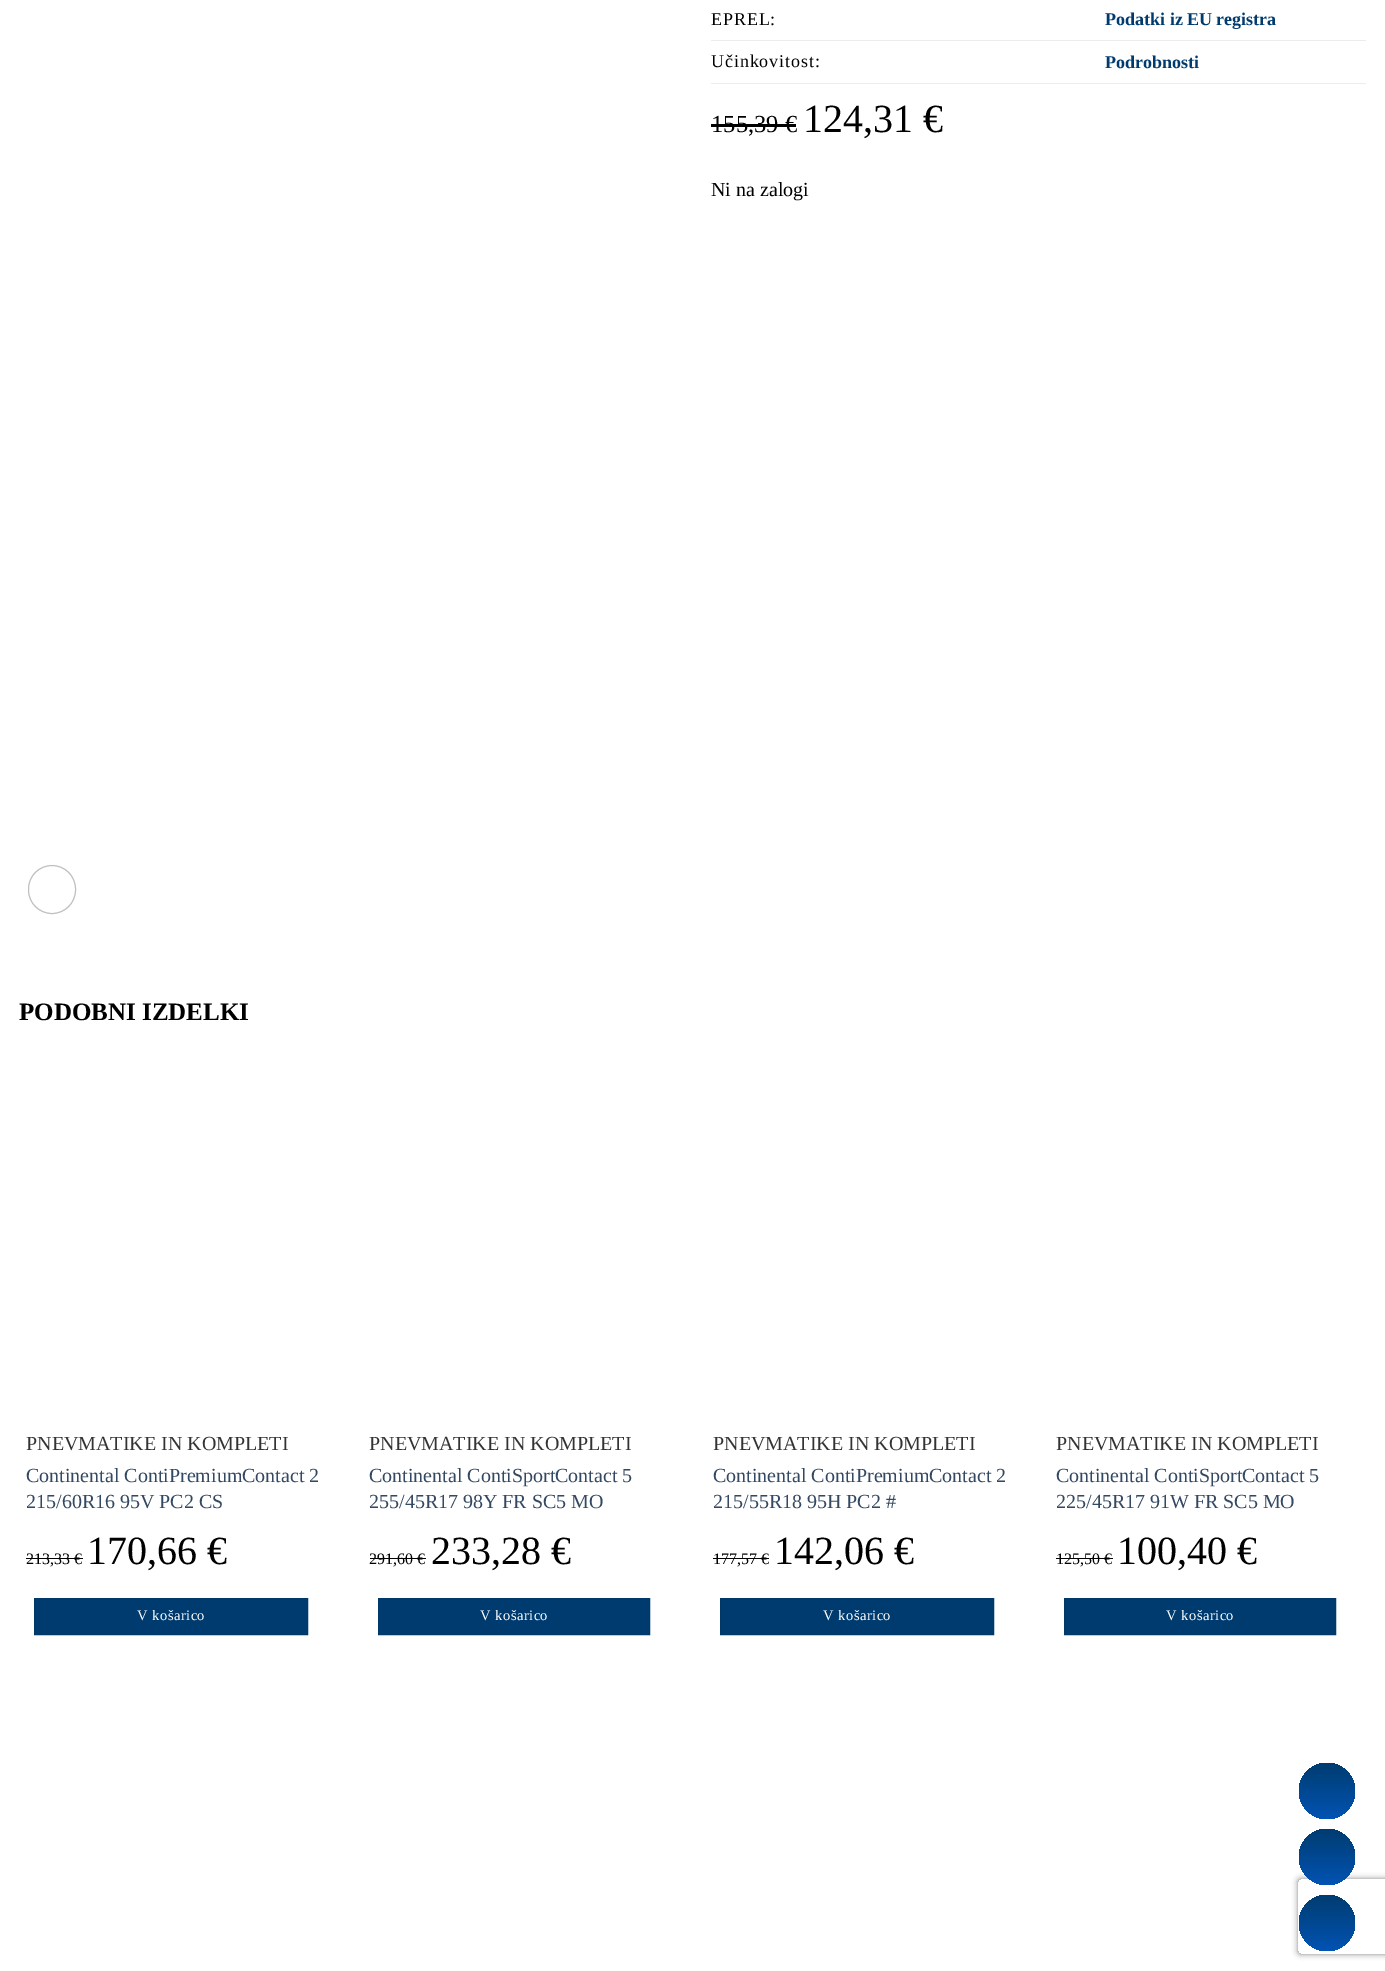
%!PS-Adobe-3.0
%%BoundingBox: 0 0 1385 1971
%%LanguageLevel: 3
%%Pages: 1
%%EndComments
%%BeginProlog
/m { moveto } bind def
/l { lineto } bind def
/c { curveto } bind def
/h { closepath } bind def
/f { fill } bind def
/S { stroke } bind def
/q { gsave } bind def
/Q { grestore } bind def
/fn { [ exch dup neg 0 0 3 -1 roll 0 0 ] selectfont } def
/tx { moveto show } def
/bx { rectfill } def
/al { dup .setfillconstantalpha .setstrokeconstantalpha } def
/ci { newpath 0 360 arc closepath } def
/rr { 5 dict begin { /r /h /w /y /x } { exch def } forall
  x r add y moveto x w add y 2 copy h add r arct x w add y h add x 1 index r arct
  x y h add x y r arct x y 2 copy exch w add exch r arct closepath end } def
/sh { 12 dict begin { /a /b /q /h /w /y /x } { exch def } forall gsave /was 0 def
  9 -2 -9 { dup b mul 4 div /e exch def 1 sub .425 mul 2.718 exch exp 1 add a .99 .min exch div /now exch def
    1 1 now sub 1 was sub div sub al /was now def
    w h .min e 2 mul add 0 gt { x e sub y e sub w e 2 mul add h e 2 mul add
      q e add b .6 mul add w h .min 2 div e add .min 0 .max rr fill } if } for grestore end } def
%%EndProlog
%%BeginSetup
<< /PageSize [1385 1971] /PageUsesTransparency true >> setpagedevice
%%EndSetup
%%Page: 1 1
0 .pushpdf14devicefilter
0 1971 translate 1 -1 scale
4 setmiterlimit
1 setgray
0 0 1385 1971 bx
0.925 setgray
711 40 655 1 bx
/LiberationSerif-Regular 18 fn
0 setgray
711 25 m 0.9 0 (EPREL:) ashow
/LiberationSerif-Bold 18 fn
0 0.231 0.435 setrgbcolor
(Podatki iz EU registra) 1105 25 tx
0.925 setgray
711 83 655 1 bx
/LiberationSerif-Regular 18 fn
0 setgray
711 67 m 0.9 0 (Učinkovitost:) ashow
/LiberationSerif-Bold 18 fn
0 0.231 0.435 setrgbcolor
(Podrobnosti) 1105 68 tx
/LiberationSerif-Regular 24.5 fn
0 setgray
(155,39 €) 711 132 tx
711 124 85 3 bx
/LiberationSerif-Regular 40 fn
(124,31 €) 803 132 tx
/LiberationSerif-Regular 20 fn
(Ni na zalogi) 711 196 tx
0.753 setgray
28.5 865.5 47 48 23.5 rr S
/LiberationSerif-Bold 25 fn
0 setgray
(PODOBNI IZDELKI) 19 1020 tx
/LiberationSerif-Regular 20 fn
0.2 setgray
(PNEVMATIKE IN KOMPLETI) 26 1450 tx
0.2 0.282 0.384 setrgbcolor
(Continental ContiPremiumContact 2) 26 1482 tx
(215/60R16 95V PC2 CS) 26 1508 tx
/LiberationSerif-Regular 16 fn
0 setgray
(213,33 €) 26 1564 tx
26 1558 57 1 bx
/LiberationSerif-Regular 40 fn
(170,66 €) 87 1564 tx
0 0.231 0.435 setrgbcolor
34.5 1598.5 m 307.5 1598.5 l 307.5 1634.5 l 34.5 1634.5 l h q f Q
0 0.22 0.412 setrgbcolor
S
/LiberationSerif-Regular 14.5 fn
1 setgray
137 1620 m 0.5 0 (V košarico) ashow
/LiberationSerif-Regular 20 fn
0.2 setgray
(PNEVMATIKE IN KOMPLETI) 369 1450 tx
0.2 0.282 0.384 setrgbcolor
(Continental ContiSportContact 5) 369 1482 tx
(255/45R17 98Y FR SC5 MO) 369 1508 tx
/LiberationSerif-Regular 16 fn
0 setgray
(291,60 €) 369 1564 tx
370 1558 56 1 bx
/LiberationSerif-Regular 40 fn
(233,28 €) 431 1564 tx
0 0.231 0.435 setrgbcolor
378.5 1598.5 m 649.5 1598.5 l 649.5 1634.5 l 378.5 1634.5 l h q f Q
0 0.22 0.412 setrgbcolor
S
/LiberationSerif-Regular 14.5 fn
1 setgray
480 1620 m 0.5 0 (V košarico) ashow
/LiberationSerif-Regular 20 fn
0.2 setgray
(PNEVMATIKE IN KOMPLETI) 713 1450 tx
0.2 0.282 0.384 setrgbcolor
(Continental ContiPremiumContact 2) 713 1482 tx
(215/55R18 95H PC2 #) 713 1508 tx
/LiberationSerif-Regular 16 fn
0 setgray
(177,57 €) 713 1564 tx
713 1558 56 1 bx
/LiberationSerif-Regular 40 fn
(142,06 €) 774 1564 tx
0 0.231 0.435 setrgbcolor
720.5 1598.5 m 993.5 1598.5 l 993.5 1634.5 l 720.5 1634.5 l h q f Q
0 0.22 0.412 setrgbcolor
S
/LiberationSerif-Regular 14.5 fn
1 setgray
823 1620 m 0.5 0 (V košarico) ashow
/LiberationSerif-Regular 20 fn
0.2 setgray
(PNEVMATIKE IN KOMPLETI) 1056 1450 tx
0.2 0.282 0.384 setrgbcolor
(Continental ContiSportContact 5) 1056 1482 tx
(225/45R17 91W FR SC5 MO) 1056 1508 tx
/LiberationSerif-Regular 16 fn
0 setgray
(125,50 €) 1056 1564 tx
1056 1558 57 1 bx
/LiberationSerif-Regular 40 fn
(100,40 €) 1117 1564 tx
0 0.231 0.435 setrgbcolor
1064.5 1598.5 m 1335.5 1598.5 l 1335.5 1634.5 l 1064.5 1634.5 l h q f Q
0 0.22 0.412 setrgbcolor
S
/LiberationSerif-Regular 14.5 fn
1 setgray
1166 1620 m 0.5 0 (V košarico) ashow
q 1327 1791 28 ci clip newpath
<< /ShadingType 2 /ColorSpace /DeviceRGB /Coords [1327 1763 1327 1819] /Extend [true true] /Function << /FunctionType 2 /Domain [0 1] /C0 [0 0.235 0.439] /C1 [0.008 0.325 0.706] /N 1 >> >> shfill Q
q
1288 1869 m 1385 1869 l 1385 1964 l 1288 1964 l h 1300.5 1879 m 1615.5 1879 l 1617 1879 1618 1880 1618 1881.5 c 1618 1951.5 l 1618 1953 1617 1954 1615.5 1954 c 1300.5 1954 l 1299 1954 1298 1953 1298 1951.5 c 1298 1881.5 l 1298 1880 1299 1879 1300.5 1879 c h eoclip newpath
0.502 setgray
1298 1879 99 75 2.5 3 1 sh
Q
q 1327 1857 28 ci clip newpath
<< /ShadingType 2 /ColorSpace /DeviceRGB /Coords [1327 1829 1327 1885] /Extend [true true] /Function << /FunctionType 2 /Domain [0 1] /C0 [0 0.235 0.439] /C1 [0.008 0.325 0.706] /N 1 >> >> shfill Q
q 1327 1923 28 ci clip newpath
<< /ShadingType 2 /ColorSpace /DeviceRGB /Coords [1327 1895 1327 1951] /Extend [true true] /Function << /FunctionType 2 /Domain [0 1] /C0 [0 0.235 0.439] /C1 [0.008 0.325 0.706] /N 1 >> >> shfill Q
.poppdf14devicefilter showpage
%%EOF
